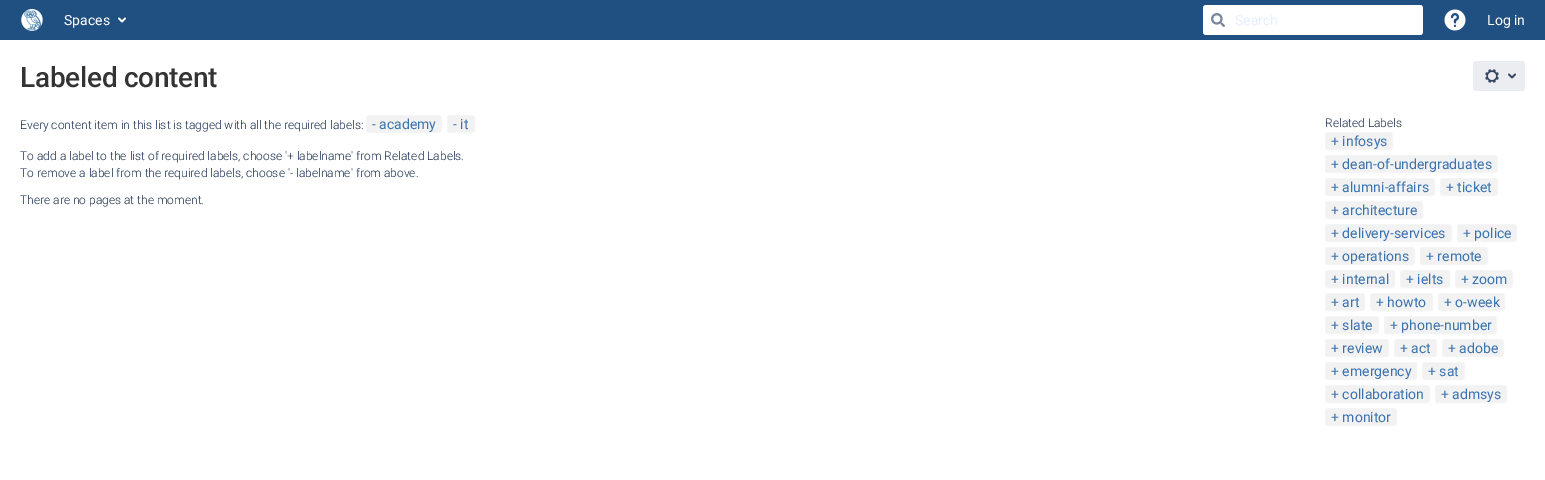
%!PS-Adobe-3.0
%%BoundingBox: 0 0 1545 480
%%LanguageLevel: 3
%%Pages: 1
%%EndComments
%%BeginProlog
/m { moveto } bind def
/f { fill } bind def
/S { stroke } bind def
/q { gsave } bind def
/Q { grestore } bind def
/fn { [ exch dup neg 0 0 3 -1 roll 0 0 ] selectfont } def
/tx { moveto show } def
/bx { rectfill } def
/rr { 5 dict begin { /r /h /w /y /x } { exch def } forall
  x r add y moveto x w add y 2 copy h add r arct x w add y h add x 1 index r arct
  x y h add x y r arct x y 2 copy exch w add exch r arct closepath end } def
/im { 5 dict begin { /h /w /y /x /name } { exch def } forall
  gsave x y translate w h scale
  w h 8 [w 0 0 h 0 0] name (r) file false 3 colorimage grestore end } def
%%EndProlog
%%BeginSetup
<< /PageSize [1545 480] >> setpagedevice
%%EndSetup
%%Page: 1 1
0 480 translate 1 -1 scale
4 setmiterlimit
0.125 0.314 0.506 setrgbcolor
0 0 1545 480 bx
(image0.raw) 21 8 22 23 im
/Roboto-Regular 14 fn
1 setgray
(Spaces) 64 25 tx
(image1.raw) 118 17 8 6 im
1203 5 220 30 3 rr f
(image2.raw) 1211 13 14 14 im
0.898 0.937 1 setrgbcolor
(Search) 1235 25 tx
(image3.raw) 1444 9 22 22 im
1 setgray
(Log in) 1487 25 tx
0 40 1545 440 bx
/Roboto-Medium 28 fn
0.2 setgray
20 87 m -0.25 0 (Labeled content) ashow
0.922 0.929 0.941 setrgbcolor
1473 61 52 30 3 rr f
(image4.raw) 1485 69 14 14 im
(image5.raw) 1508 73 8 6 im
/Roboto-Light 12 fn
0.09 0.169 0.302 setrgbcolor
(Every content item in this list is tagged with all the required labels:) 20 129 tx
0.949 setgray
366.5 115.5 75 17 2.5 rr q f Q
0.957 0.961 0.969 setrgbcolor
S
/Roboto-Regular 14 fn
0.231 0.451 0.686 setrgbcolor
(- academy) 372 129 tx
0.949 setgray
447.5 115.5 27 17 2.5 rr q f Q
0.957 0.961 0.969 setrgbcolor
S
0.231 0.451 0.686 setrgbcolor
(- it) 453 129 tx
/Roboto-Light 12 fn
0.09 0.169 0.302 setrgbcolor
(To add a label to the list of required labels, choose '+ labelname' from Related Labels.) 20 160 tx
(To remove a label from the required labels, choose '- labelname' from above.) 20 177 tx
(There are no pages at the moment.) 20 204 tx
(Related Labels) 1325 127 tx
0.949 setgray
1325.5 132.5 67 17 2.5 rr q f Q
0.957 0.961 0.969 setrgbcolor
S
/Roboto-Regular 14 fn
0.231 0.451 0.686 setrgbcolor
(+ infosys) 1331 146 tx
0.949 setgray
1325.5 155.5 172 17 2.5 rr q f Q
0.957 0.961 0.969 setrgbcolor
S
0.231 0.451 0.686 setrgbcolor
(+ dean-of-undergraduates) 1331 169 tx
0.949 setgray
1325.5 178.5 109 17 2.5 rr q f Q
0.957 0.961 0.969 setrgbcolor
S
0.231 0.451 0.686 setrgbcolor
(+ alumni-affairs) 1331 192 tx
0.949 setgray
1440.5 178.5 57 17 2.5 rr q f Q
0.957 0.961 0.969 setrgbcolor
S
0.231 0.451 0.686 setrgbcolor
(+ ticket) 1446 192 tx
0.949 setgray
1325.5 201.5 97 17 2.5 rr q f Q
0.957 0.961 0.969 setrgbcolor
S
0.231 0.451 0.686 setrgbcolor
(+ architecture) 1331 215 tx
0.949 setgray
1325.5 224.5 126 17 2.5 rr q f Q
0.957 0.961 0.969 setrgbcolor
S
0.231 0.451 0.686 setrgbcolor
(+ delivery-services) 1331 238 tx
0.949 setgray
1457.5 224.5 59 17 2.5 rr q f Q
0.957 0.961 0.969 setrgbcolor
S
0.231 0.451 0.686 setrgbcolor
(+ police) 1463 238 tx
0.949 setgray
1325.5 247.5 89 17 2.5 rr q f Q
0.957 0.961 0.969 setrgbcolor
S
0.231 0.451 0.686 setrgbcolor
(+ operations) 1331 261 tx
0.949 setgray
1420.5 247.5 67 17 2.5 rr q f Q
0.957 0.961 0.969 setrgbcolor
S
0.231 0.451 0.686 setrgbcolor
(+ remote) 1426 261 tx
0.949 setgray
1325.5 270.5 69 17 2.5 rr q f Q
0.957 0.961 0.969 setrgbcolor
S
0.231 0.451 0.686 setrgbcolor
(+ internal) 1331 284 tx
0.949 setgray
1400.5 270.5 49 17 2.5 rr q f Q
0.957 0.961 0.969 setrgbcolor
S
0.231 0.451 0.686 setrgbcolor
(+ ielts) 1406 284 tx
0.949 setgray
1455.5 270.5 57 17 2.5 rr q f Q
0.957 0.961 0.969 setrgbcolor
S
0.231 0.451 0.686 setrgbcolor
(+ zoom) 1461 284 tx
0.949 setgray
1325.5 293.5 39 17 2.5 rr q f Q
0.957 0.961 0.969 setrgbcolor
S
0.231 0.451 0.686 setrgbcolor
(+ art) 1331 307 tx
0.949 setgray
1370.5 293.5 62 17 2.5 rr q f Q
0.957 0.961 0.969 setrgbcolor
S
0.231 0.451 0.686 setrgbcolor
(+ howto) 1376 307 tx
0.949 setgray
1438.5 293.5 66 17 2.5 rr q f Q
0.957 0.961 0.969 setrgbcolor
S
0.231 0.451 0.686 setrgbcolor
(+ o-week) 1444 307 tx
0.949 setgray
1325.5 316.5 53 17 2.5 rr q f Q
0.957 0.961 0.969 setrgbcolor
S
0.231 0.451 0.686 setrgbcolor
(+ slate) 1331 330 tx
0.949 setgray
1384.5 316.5 112 17 2.5 rr q f Q
0.957 0.961 0.969 setrgbcolor
S
0.231 0.451 0.686 setrgbcolor
(+ phone-number) 1390 330 tx
0.949 setgray
1325.5 339.5 63 17 2.5 rr q f Q
0.957 0.961 0.969 setrgbcolor
S
0.231 0.451 0.686 setrgbcolor
(+ review) 1331 353 tx
0.949 setgray
1394.5 339.5 42 17 2.5 rr q f Q
0.957 0.961 0.969 setrgbcolor
S
0.231 0.451 0.686 setrgbcolor
(+ act) 1400 353 tx
0.949 setgray
1442.5 339.5 61 17 2.5 rr q f Q
0.957 0.961 0.969 setrgbcolor
S
0.231 0.451 0.686 setrgbcolor
(+ adobe) 1448 353 tx
0.949 setgray
1325.5 362.5 91 17 2.5 rr q f Q
0.957 0.961 0.969 setrgbcolor
S
0.231 0.451 0.686 setrgbcolor
(+ emergency) 1331 376 tx
0.949 setgray
1422.5 362.5 42 17 2.5 rr q f Q
0.957 0.961 0.969 setrgbcolor
S
0.231 0.451 0.686 setrgbcolor
(+ sat) 1428 376 tx
0.949 setgray
1325.5 385.5 104 17 2.5 rr q f Q
0.957 0.961 0.969 setrgbcolor
S
0.231 0.451 0.686 setrgbcolor
(+ collaboration) 1331 399 tx
0.949 setgray
1435.5 385.5 71 17 2.5 rr q f Q
0.957 0.961 0.969 setrgbcolor
S
0.231 0.451 0.686 setrgbcolor
(+ admsys) 1441 399 tx
0.949 setgray
1325.5 408.5 71 17 2.5 rr q f Q
0.957 0.961 0.969 setrgbcolor
S
0.231 0.451 0.686 setrgbcolor
(+ monitor) 1331 422 tx
showpage
%%EOF
